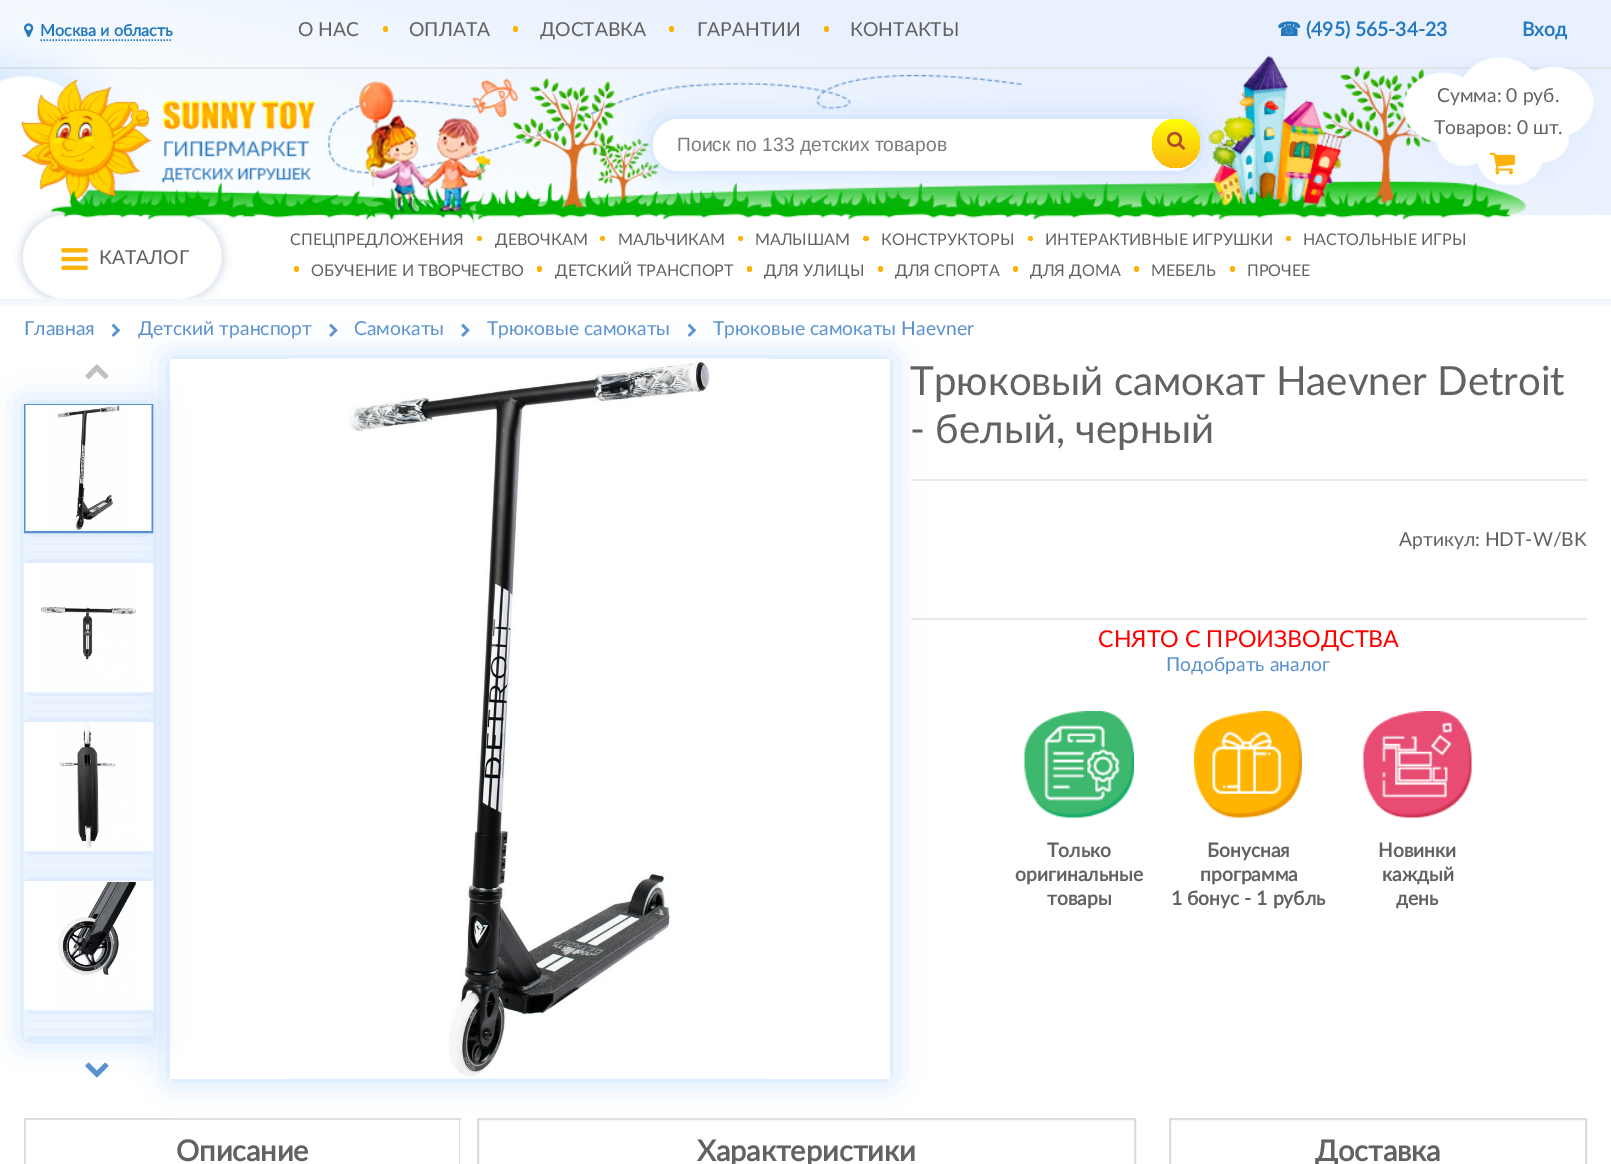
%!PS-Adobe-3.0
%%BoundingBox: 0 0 1611 1164
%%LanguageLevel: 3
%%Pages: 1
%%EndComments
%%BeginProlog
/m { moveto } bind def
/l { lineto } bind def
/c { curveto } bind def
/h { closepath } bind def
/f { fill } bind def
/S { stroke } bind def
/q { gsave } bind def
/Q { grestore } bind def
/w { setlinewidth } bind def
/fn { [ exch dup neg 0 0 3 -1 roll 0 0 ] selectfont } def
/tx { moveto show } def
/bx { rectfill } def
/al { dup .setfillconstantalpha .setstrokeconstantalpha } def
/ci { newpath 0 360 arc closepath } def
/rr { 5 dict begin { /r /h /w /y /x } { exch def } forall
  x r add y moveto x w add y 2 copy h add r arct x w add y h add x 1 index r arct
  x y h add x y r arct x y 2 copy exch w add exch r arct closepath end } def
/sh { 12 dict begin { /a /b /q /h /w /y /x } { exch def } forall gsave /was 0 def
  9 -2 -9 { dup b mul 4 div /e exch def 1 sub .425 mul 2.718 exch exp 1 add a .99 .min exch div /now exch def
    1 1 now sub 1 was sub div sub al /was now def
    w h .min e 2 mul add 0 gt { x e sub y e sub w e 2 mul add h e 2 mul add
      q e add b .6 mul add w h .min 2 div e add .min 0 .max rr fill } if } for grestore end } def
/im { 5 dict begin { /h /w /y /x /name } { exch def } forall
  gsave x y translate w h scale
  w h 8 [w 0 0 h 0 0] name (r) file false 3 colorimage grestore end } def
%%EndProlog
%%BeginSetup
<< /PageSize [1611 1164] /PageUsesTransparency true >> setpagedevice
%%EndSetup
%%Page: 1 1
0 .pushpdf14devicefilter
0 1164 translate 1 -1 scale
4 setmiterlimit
1 setgray
0 0 1611 1164 bx
(image0.raw) 0 0 1611 299 im
(image1.raw) 24 23 10 15 im
/Lato-Bold 16.1 fn
0.145 0.475 0.749 setrgbcolor
(Москва и область) 40 36 tx
1.5 w
[1.5 1.5] 0 setdash
40.5 40 m 172.5 40 l S
/Lato-Regular 19.3 fn
0.384 setgray
(О НАС) 298 36 tx
0.988 0.698 0.027 setrgbcolor
383 26 5 6 2.5 rr f
0.384 setgray
(ОПЛАТА) 409 36 tx
0.988 0.698 0.027 setrgbcolor
513 26 5 6 2.5 rr f
0.384 setgray
(ДОСТАВКА) 540 36 tx
0.988 0.698 0.027 setrgbcolor
669 26 5 6 2.5 rr f
0.384 setgray
(ГАРАНТИИ) 697 36 tx
0.988 0.698 0.027 setrgbcolor
824 26 5 6 2.5 rr f
0.384 setgray
(КОНТАКТЫ) 850 36 tx
/DejaVuSans-Bold 19.3 fn
0.145 0.475 0.749 setrgbcolor
(☎) 1277 36 tx
/Lato-Bold 19.3 fn
(\(495\) 565-34-23) 1306 36 tx
(Вход) 1522 36 tx
0.765 0.859 0.988 setrgbcolor
653 119 547 52 26 16 1 sh
1 setgray
653 119 547 52 26 rr f
679 119 m 1107 119 l 1107 171 l 679 171 l 664.5 171 653 159.5 653 145 c 653 130.5 664.5 119 679 119 c h f
/LiberationSans-Regular 19.3 fn
0.486 setgray
(Поиск по 133 детских товаров) 677 151 tx
q 1152 119 48 49 24 rr clip newpath
<< /ShadingType 2 /ColorSpace /DeviceRGB /Coords [1176 119 1176 168] /Extend [true true] /Function << /FunctionType 2 /Domain [0 1] /C0 [0.996 0.992 0.027] /C1 [0.988 0.718 0.063] /N 1 >> >> shfill Q
(image2.raw) 1167 131 18 19 im
(image3.raw) 61 248 27 22 im
/Lato-Regular 19.3 fn
0.384 setgray
(КАТАЛОГ) 99 264 tx
/Lato-Regular 16.1 fn
(СПЕЦПРЕДЛОЖЕНИЯ) 290 245 tx
0.988 0.698 0.027 setrgbcolor
479.5 238.5 2.5 ci f
0.384 setgray
(ДЕВОЧКАМ) 495 245 tx
0.988 0.698 0.027 setrgbcolor
602.5 238.5 2.5 ci f
0.384 setgray
(МАЛЬЧИКАМ) 618 245 tx
0.988 0.698 0.027 setrgbcolor
740.5 238.5 2.5 ci f
0.384 setgray
(МАЛЫШАМ) 755 245 tx
0.988 0.698 0.027 setrgbcolor
863 236 6 5 2.5 rr f
0.384 setgray
(КОНСТРУКТОРЫ) 881 245 tx
0.988 0.698 0.027 setrgbcolor
1030.5 238.5 2.5 ci f
0.384 setgray
(ИНТЕРАКТИВНЫЕ ИГРУШКИ) 1045 245 tx
0.988 0.698 0.027 setrgbcolor
1288.5 238.5 2.5 ci f
0.384 setgray
(НАСТОЛЬНЫЕ ИГРЫ) 1303 245 tx
0.988 0.698 0.027 setrgbcolor
294 266 5 6 2.5 rr f
0.384 setgray
(ОБУЧЕНИЕ И ТВОРЧЕСТВО) 311 276 tx
0.988 0.698 0.027 setrgbcolor
537 266 5 6 2.5 rr f
0.384 setgray
(ДЕТСКИЙ ТРАНСПОРТ) 555 276 tx
0.988 0.698 0.027 setrgbcolor
747 266 5 6 2.5 rr f
0.384 setgray
(ДЛЯ УЛИЦЫ) 764 276 tx
0.988 0.698 0.027 setrgbcolor
878 266 5 6 2.5 rr f
0.384 setgray
(ДЛЯ СПОРТА) 895 276 tx
0.988 0.698 0.027 setrgbcolor
1013 266 5 6 2.5 rr f
0.384 setgray
(ДЛЯ ДОМА) 1030 276 tx
0.988 0.698 0.027 setrgbcolor
1134 266 5 6 2.5 rr f
0.384 setgray
(МЕБЕЛЬ) 1151 276 tx
0.988 0.698 0.027 setrgbcolor
1230 266 5 6 2.5 rr f
0.384 setgray
(ПРОЧЕЕ) 1247 276 tx
q 0 299 m 1611 299 l 1611 307 l 0 307 l h clip newpath
<< /ShadingType 2 /ColorSpace /DeviceRGB /Coords [806 298 806 309] /Extend [true true] /Function << /FunctionType 2 /Domain [0 1] /C0 [0.937 0.961 0.996] /C1 [1 1 1] /N 1 >> >> shfill Q
/Lato-Regular 19.3 fn
0.349 0.565 0.808 setrgbcolor
(Главная) 24 335 tx
(image4.raw) 111 323 10 14 im
(Детский транспорт) 138 335 tx
(image5.raw) 329 323 9 14 im
(Самокаты) 354 335 tx
(image5.raw) 461 323 9 14 im
(Трюковые самокаты) 487 335 tx
(image4.raw) 687 323 10 14 im
(Трюковые самокаты Haevner) 713 335 tx
(image10.raw) 85 364 24 16 im
(image11.raw) 85 1062 24 16 im
q
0 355 m 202 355 l 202 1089 l 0 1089 l h 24 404 m 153 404 l 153 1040 l 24 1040 l h eoclip newpath
0.765 0.859 0.988 setrgbcolor
24 404 129 636 0 16 1 sh
Q
q
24 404 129 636 rectclip
0.765 0.859 0.988 setrgbcolor
24 404 129 129 0 16 1 sh
Q
0.867 setgray
24 1118 437 2 bx
460 1118 m 460 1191 l 459 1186 l 459 1119 l h f
2 w
[] 0 setdash
478 1119 657 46 rectstroke
q
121 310 m 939 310 l 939 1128 l 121 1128 l h 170 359 m 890 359 l 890 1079 l 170 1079 l h eoclip newpath
0.765 0.859 0.988 setrgbcolor
170 359 720 720 0 16 1 sh
Q
0.337 0.557 0.8 setrgbcolor
25 405 127 127 rectstroke
(image6.raw) 25 405 127 126 im
q
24 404 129 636 rectclip
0 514 m 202 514 l 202 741 l 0 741 l h 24 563 m 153 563 l 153 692 l 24 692 l h eoclip newpath
0.765 0.859 0.988 setrgbcolor
24 563 129 129 0 16 1 sh
Q
1 setgray
25 564 127 127 rectstroke
(image7.raw) 41 565 110 125 im
q
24 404 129 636 rectclip
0 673 m 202 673 l 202 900 l 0 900 l h 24 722 m 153 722 l 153 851 l 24 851 l h eoclip newpath
0.765 0.859 0.988 setrgbcolor
24 722 129 129 0 16 1 sh
Q
25 723 127 127 rectstroke
(image8.raw) 59 723 92 126 im
q
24 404 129 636 rectclip
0 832 m 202 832 l 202 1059 l 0 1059 l h 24 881 m 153 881 l 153 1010 l 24 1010 l h eoclip newpath
0.765 0.859 0.988 setrgbcolor
24 881 129 129 0 16 1 sh
Q
25 882 127 127 rectstroke
(image9.raw) 58 882 93 126 im
0.867 setgray
24 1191 m 24 1118 l 26 1119 l 26 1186 l h f
q
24 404 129 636 rectclip
0.765 0.859 0.988 setrgbcolor
24 1040 129 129 0 16 1 sh
Q
(image12.raw) 290 358 479 721 im
/Lato-Regular 40.25 fn
0.384 setgray
(Трюковый самокат Haevner Detroit) 910 395 tx
(- белый, черный) 910 443 tx
0.91 setgray
911 479 676 2 bx
/Lato-Regular 19.3 fn
0.384 setgray
(Артикул: HDT-W/BK) 1399 546 tx
0.91 setgray
911 618 676 2 bx
/Lato-Regular 23.25 fn
1 0 0 setrgbcolor
(СНЯТО С ПРОИЗВОДСТВА) 1098 647 tx
/Lato-Regular 19.3 fn
0.349 0.565 0.808 setrgbcolor
(Подобрать аналог) 1166 671 tx
(image13.raw) 1024 711 110 107 im
/Lato-Bold 19.3 fn
0.384 setgray
(Только) 1047 857 tx
(оригинальные) 1015 881 tx
(товары) 1047 905 tx
(image14.raw) 1194 711 108 107 im
(Бонусная) 1207 857 tx
(программа) 1200 881 tx
(1 бонус - 1 рубль) 1171 905 tx
(image15.raw) 1363 711 109 107 im
(Новинки) 1378 857 tx
(каждый) 1382 881 tx
(день) 1396 905 tx
/Lato-Bold 29 fn
(Описание) 176 1161 tx
(Характеристики) 697 1161 tx
0.867 setgray
1170 1119 416 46 rectstroke
0.384 setgray
(Доставка) 1315 1161 tx
(image16.raw) 1397 57 197 128 im
/Lato-Regular 19.3 fn
(Сумма: 0 руб.) 1437 102 tx
(Товаров: 0 шт.) 1434 134 tx
(image17.raw) 1489 152 26 23 im
.poppdf14devicefilter showpage
%%EOF
